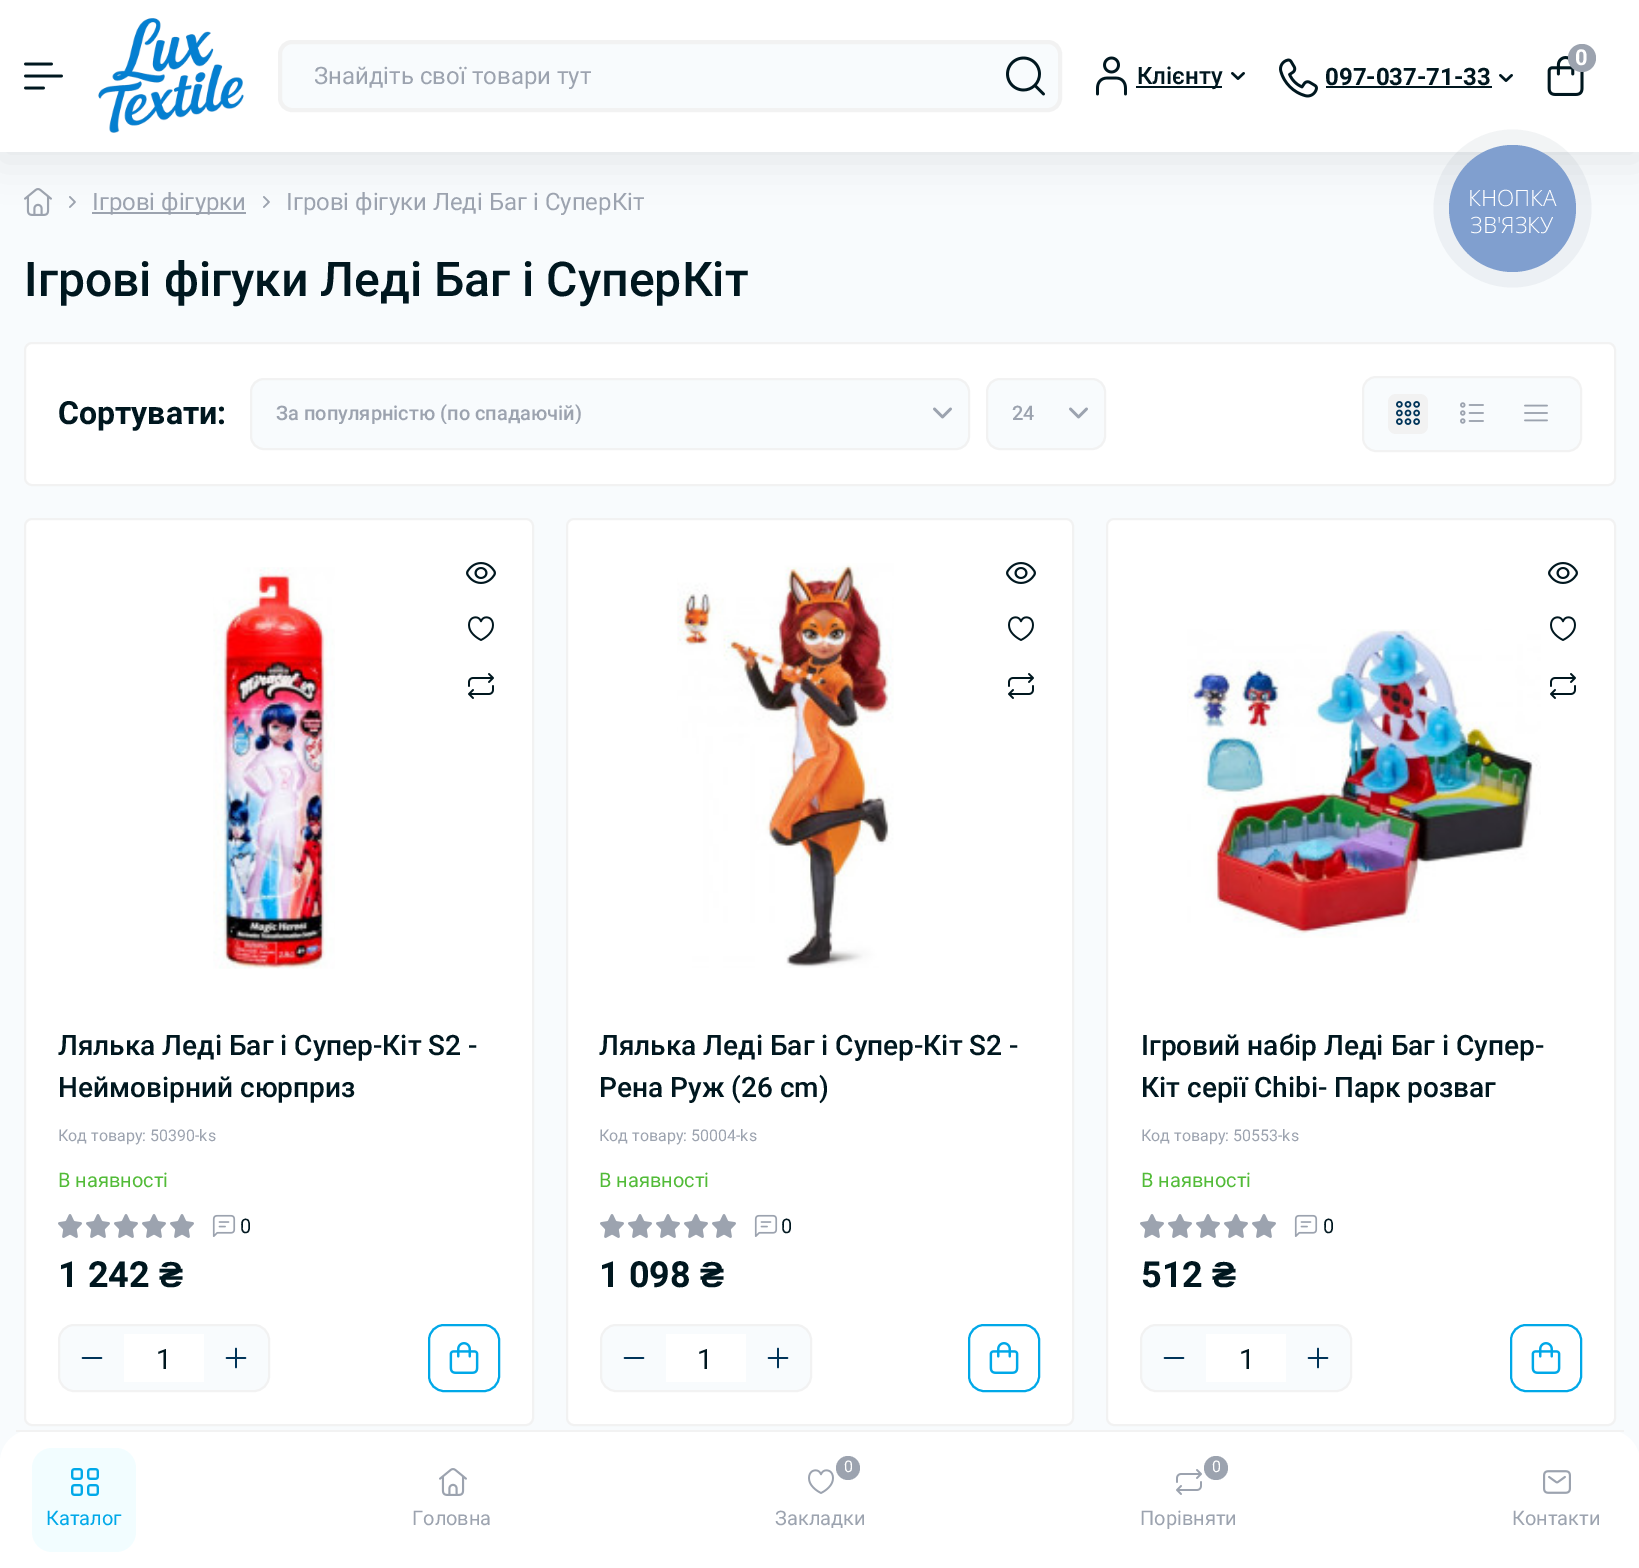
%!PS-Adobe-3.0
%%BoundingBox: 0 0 1639 1568
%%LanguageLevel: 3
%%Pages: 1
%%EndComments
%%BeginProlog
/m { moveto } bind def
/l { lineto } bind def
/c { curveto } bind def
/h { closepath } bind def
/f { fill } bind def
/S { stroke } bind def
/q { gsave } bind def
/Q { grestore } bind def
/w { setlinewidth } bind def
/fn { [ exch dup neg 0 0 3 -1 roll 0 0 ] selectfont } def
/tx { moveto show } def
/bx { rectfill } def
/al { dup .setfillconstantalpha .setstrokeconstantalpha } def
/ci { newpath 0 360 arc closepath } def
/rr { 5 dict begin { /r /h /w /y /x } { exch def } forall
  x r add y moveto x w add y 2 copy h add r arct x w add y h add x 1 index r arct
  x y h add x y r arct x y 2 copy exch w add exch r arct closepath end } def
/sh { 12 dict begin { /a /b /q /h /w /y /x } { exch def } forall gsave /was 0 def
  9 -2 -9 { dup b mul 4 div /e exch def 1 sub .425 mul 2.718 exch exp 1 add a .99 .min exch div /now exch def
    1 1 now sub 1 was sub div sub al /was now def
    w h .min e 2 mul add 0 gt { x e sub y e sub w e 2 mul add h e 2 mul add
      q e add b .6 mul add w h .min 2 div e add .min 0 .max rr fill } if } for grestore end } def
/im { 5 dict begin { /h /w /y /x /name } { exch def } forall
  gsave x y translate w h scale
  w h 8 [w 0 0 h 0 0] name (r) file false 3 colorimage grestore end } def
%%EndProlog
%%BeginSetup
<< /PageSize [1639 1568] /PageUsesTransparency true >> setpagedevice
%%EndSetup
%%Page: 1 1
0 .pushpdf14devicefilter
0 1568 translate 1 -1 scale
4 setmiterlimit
0.973 0.984 0.992 setrgbcolor
0 0 1639 1568 bx
(image7.raw) 24 188 28 28 im
(image8.raw) 69 196 7 12 im
0.612 0.639 0.686 setrgbcolor
92 212 154 2 bx
(image8.raw) 263 196 7 12 im
0.145 0.149 0.153 setrgbcolor
0 8 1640 152 0 20 0.1 sh
1 setgray
0 0 1639 152 bx
(image0.raw) 24 62 39 28 im
(image1.raw) 98 18 146 115 im
(image2.raw) 1547 56 37 40 im
0.612 0.639 0.686 setrgbcolor
1582 58 14 ci f
/Roboto-Bold 22 fn
1 setgray
(0) 1575 65 tx
0.973 0.984 0.992 setrgbcolor
280 42 780 68 12 rr q f Q
0.949 setgray
4 w
S
/Roboto-Regular 24 fn
0.612 0.639 0.686 setrgbcolor
(Знайдіть свої товари тут) 314 84 tx
(image3.raw) 1006 56 39 40 im
(image4.raw) 1096 56 31 40 im
0 0.09 0.122 setrgbcolor
1136 86 86 2 bx
/Roboto-Medium 24 fn
(Клієнту) 1137 84 tx
(image5.raw) 1231 72 14 8 im
(image6.raw) 1279 58 39 40 im
/Roboto-Bold 24 fn
(097-037-71-33) 1325 85 tx
1326 86 166 2 bx
(image5.raw) 1499 74 14 8 im
0.06 al
0.165 0.251 0.365 setrgbcolor
1512.5 208.5 79 ci f
1 al
0.502 0.624 0.812 setrgbcolor
1512.5 208.5 63.5 ci f
/OpenSans-Light 22.5 fn
1 setgray
(КНОПКА) 1468 206 tx
(ЗВ'ЯЗКУ) 1470 233 tx
/Roboto-Regular 24 fn
0.612 0.639 0.686 setrgbcolor
(Ігрові фігурки) 92 210 tx
(Ігрові фігуки Леді Баг і СуперКіт) 286 210 tx
/Roboto-Medium 48 fn
0 0.09 0.122 setrgbcolor
(Ігрові фігуки Леді Баг і СуперКіт) 24 296 tx
1 setgray
25 343 1590 142 7 rr q f Q
0.949 setgray
2 w
S
/Roboto-Bold 32 fn
0 0.09 0.122 setrgbcolor
(Сортувати:) 58 424 tx
0.973 0.984 0.992 setrgbcolor
250 378 720 72 14 rr f
(image9.raw) 933 407 19 12 im
0.949 setgray
251 379 718 70 13 rr S
q
276 404 668 20 rectclip
/Roboto-Medium 20 fn
0.612 0.639 0.686 setrgbcolor
(За популярністю \(по спадаючій\)) 276 420 tx
Q
0.973 0.984 0.992 setrgbcolor
986 378 120 72 14 rr f
(image9.raw) 1069 407 19 12 im
0.949 setgray
987 379 118 70 13 rr S
/Roboto-Medium 20 fn
0.612 0.639 0.686 setrgbcolor
(24) 1012 420 tx
0.973 0.984 0.992 setrgbcolor
1363 377 218 74 13 rr q f Q
0.949 setgray
S
1388 394 40 40 8 rr f
(image10.raw) 1396 401 24 24 im
(image11.raw) 1460 402 24 22 im
(image12.raw) 1524 404 24 18 im
1 setgray
25 519 508 906 7 rr q f Q
0.949 setgray
S
(image13.raw) 213 567 122 402 im
(image14.raw) 466 562 30 22 im
(image15.raw) 468 616 26 25 im
(image16.raw) 468 673 26 26 im
/Roboto-Medium 28 fn
0 0.09 0.122 setrgbcolor
(Лялька Леді Баг і Супер-Кіт S2 -) 58 1055 tx
(Неймовірний сюрприз) 58 1097 tx
/Roboto-Regular 16 fn
0.612 0.639 0.686 setrgbcolor
(Код товару: 50390-ks) 58 1141 tx
/Roboto-Regular 20 fn
0.322 0.733 0.22 setrgbcolor
(В наявності) 58 1187 tx
(image17.raw) 58 1214 24 24 im
(image17.raw) 86 1214 24 24 im
(image17.raw) 114 1214 24 24 im
(image17.raw) 142 1214 24 24 im
(image17.raw) 170 1214 24 24 im
(image18.raw) 212 1214 24 23 im
0 0.09 0.122 setrgbcolor
(0) 240 1233 tx
/Roboto-Bold 36 fn
(1 242) 58 1287 tx
/LiberationSans-Bold 36 fn
(₴) 159 1287 tx
0.973 0.984 0.992 setrgbcolor
59 1325 210 66 15 rr q f Q
0.949 setgray
S
(image19.raw) 81 1357 22 2 im
1 setgray
124 1334 80 48 bx
/Roboto-Regular 28 fn
0 0.09 0.122 setrgbcolor
(1) 156 1369 tx
(image20.raw) 225 1347 22 22 im
0 0.659 0.91 setrgbcolor
429 1325 70 66 15 rr S
(image21.raw) 449 1342 30 32 im
1 setgray
567 519 506 906 7 rr q f Q
0.949 setgray
S
(image22.raw) 677 563 217 405 im
(image14.raw) 1006 562 30 22 im
(image15.raw) 1008 616 26 25 im
(image16.raw) 1008 673 26 26 im
/Roboto-Medium 28 fn
0 0.09 0.122 setrgbcolor
(Лялька Леді Баг і Супер-Кіт S2 -) 599 1055 tx
(Рена Руж \(26 сm\)) 599 1097 tx
/Roboto-Regular 16 fn
0.612 0.639 0.686 setrgbcolor
(Код товару: 50004-ks) 599 1141 tx
/Roboto-Regular 20 fn
0.322 0.733 0.22 setrgbcolor
(В наявності) 599 1187 tx
(image17.raw) 600 1214 24 24 im
(image17.raw) 628 1214 24 24 im
(image17.raw) 656 1214 24 24 im
(image17.raw) 684 1214 24 24 im
(image17.raw) 712 1214 24 24 im
(image18.raw) 754 1214 24 23 im
0 0.09 0.122 setrgbcolor
(0) 781 1233 tx
/Roboto-Bold 36 fn
(1 098) 599 1287 tx
/LiberationSans-Bold 36 fn
(₴) 700 1287 tx
0.973 0.984 0.992 setrgbcolor
601 1325 210 66 15 rr q f Q
0.949 setgray
S
(image19.raw) 623 1357 22 2 im
1 setgray
666 1334 80 48 bx
/Roboto-Regular 28 fn
0 0.09 0.122 setrgbcolor
(1) 697 1369 tx
(image20.raw) 767 1347 22 22 im
0 0.659 0.91 setrgbcolor
969 1325 70 66 15 rr S
(image21.raw) 989 1342 30 32 im
1 setgray
1107 519 508 906 7 rr q f Q
0.949 setgray
S
(image23.raw) 1187 629 354 309 im
(image14.raw) 1548 562 30 22 im
(image15.raw) 1550 616 26 25 im
(image16.raw) 1550 673 26 26 im
/Roboto-Medium 28 fn
0 0.09 0.122 setrgbcolor
(Ігровий набір Леді Баг і Супер-) 1141 1055 tx
(Кіт серії Chibi- Парк розваг) 1141 1097 tx
/Roboto-Regular 16 fn
0.612 0.639 0.686 setrgbcolor
(Код товару: 50553-ks) 1141 1141 tx
/Roboto-Regular 20 fn
0.322 0.733 0.22 setrgbcolor
(В наявності) 1141 1187 tx
(image17.raw) 1140 1214 24 24 im
(image17.raw) 1168 1214 24 24 im
(image17.raw) 1196 1214 24 24 im
(image17.raw) 1224 1214 24 24 im
(image17.raw) 1252 1214 24 24 im
(image18.raw) 1294 1214 24 23 im
0 0.09 0.122 setrgbcolor
(0) 1323 1233 tx
/Roboto-Bold 36 fn
(512) 1141 1287 tx
/LiberationSans-Bold 36 fn
(₴) 1212 1287 tx
0.973 0.984 0.992 setrgbcolor
1141 1325 210 66 15 rr q f Q
0.949 setgray
S
(image19.raw) 1163 1357 22 2 im
1 setgray
1206 1334 80 48 bx
/Roboto-Regular 28 fn
0 0.09 0.122 setrgbcolor
(1) 1239 1369 tx
(image20.raw) 1307 1347 22 22 im
0 0.659 0.91 setrgbcolor
1511 1325 70 66 15 rr S
(image21.raw) 1531 1342 30 32 im
1 setgray
32 1430 m 1608 1430 l 1625.5 1430 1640 1444.5 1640 1462 c 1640 1568 l 0 1568 l 0 1462 l 0 1444.5 14.5 1430 32 1430 c h f
0.949 setgray
16 1430 1608 2 bx
0.949 0.992 1 setrgbcolor
32 1448 104 104 20 rr f
(image24.raw) 71 1468 28 28 im
/Roboto-Regular 20 fn
0 0.659 0.91 setrgbcolor
(Каталог) 46 1525 tx
(image25.raw) 439 1468 28 28 im
0.612 0.639 0.686 setrgbcolor
(Головна) 412 1525 tx
848 1468 12 ci f
/Roboto-Regular 16 fn
1 setgray
(0) 844 1472 tx
(image26.raw) 808 1469 26 25 im
/Roboto-Regular 20 fn
0.612 0.639 0.686 setrgbcolor
(Закладки) 775 1525 tx
1216 1468 12 ci f
/Roboto-Regular 16 fn
1 setgray
(0) 1212 1472 tx
(image27.raw) 1176 1469 26 26 im
/Roboto-Regular 20 fn
0.612 0.639 0.686 setrgbcolor
(Порівняти) 1140 1525 tx
(image28.raw) 1543 1470 28 24 im
(Контакти) 1512 1525 tx
.poppdf14devicefilter showpage
%%EOF
